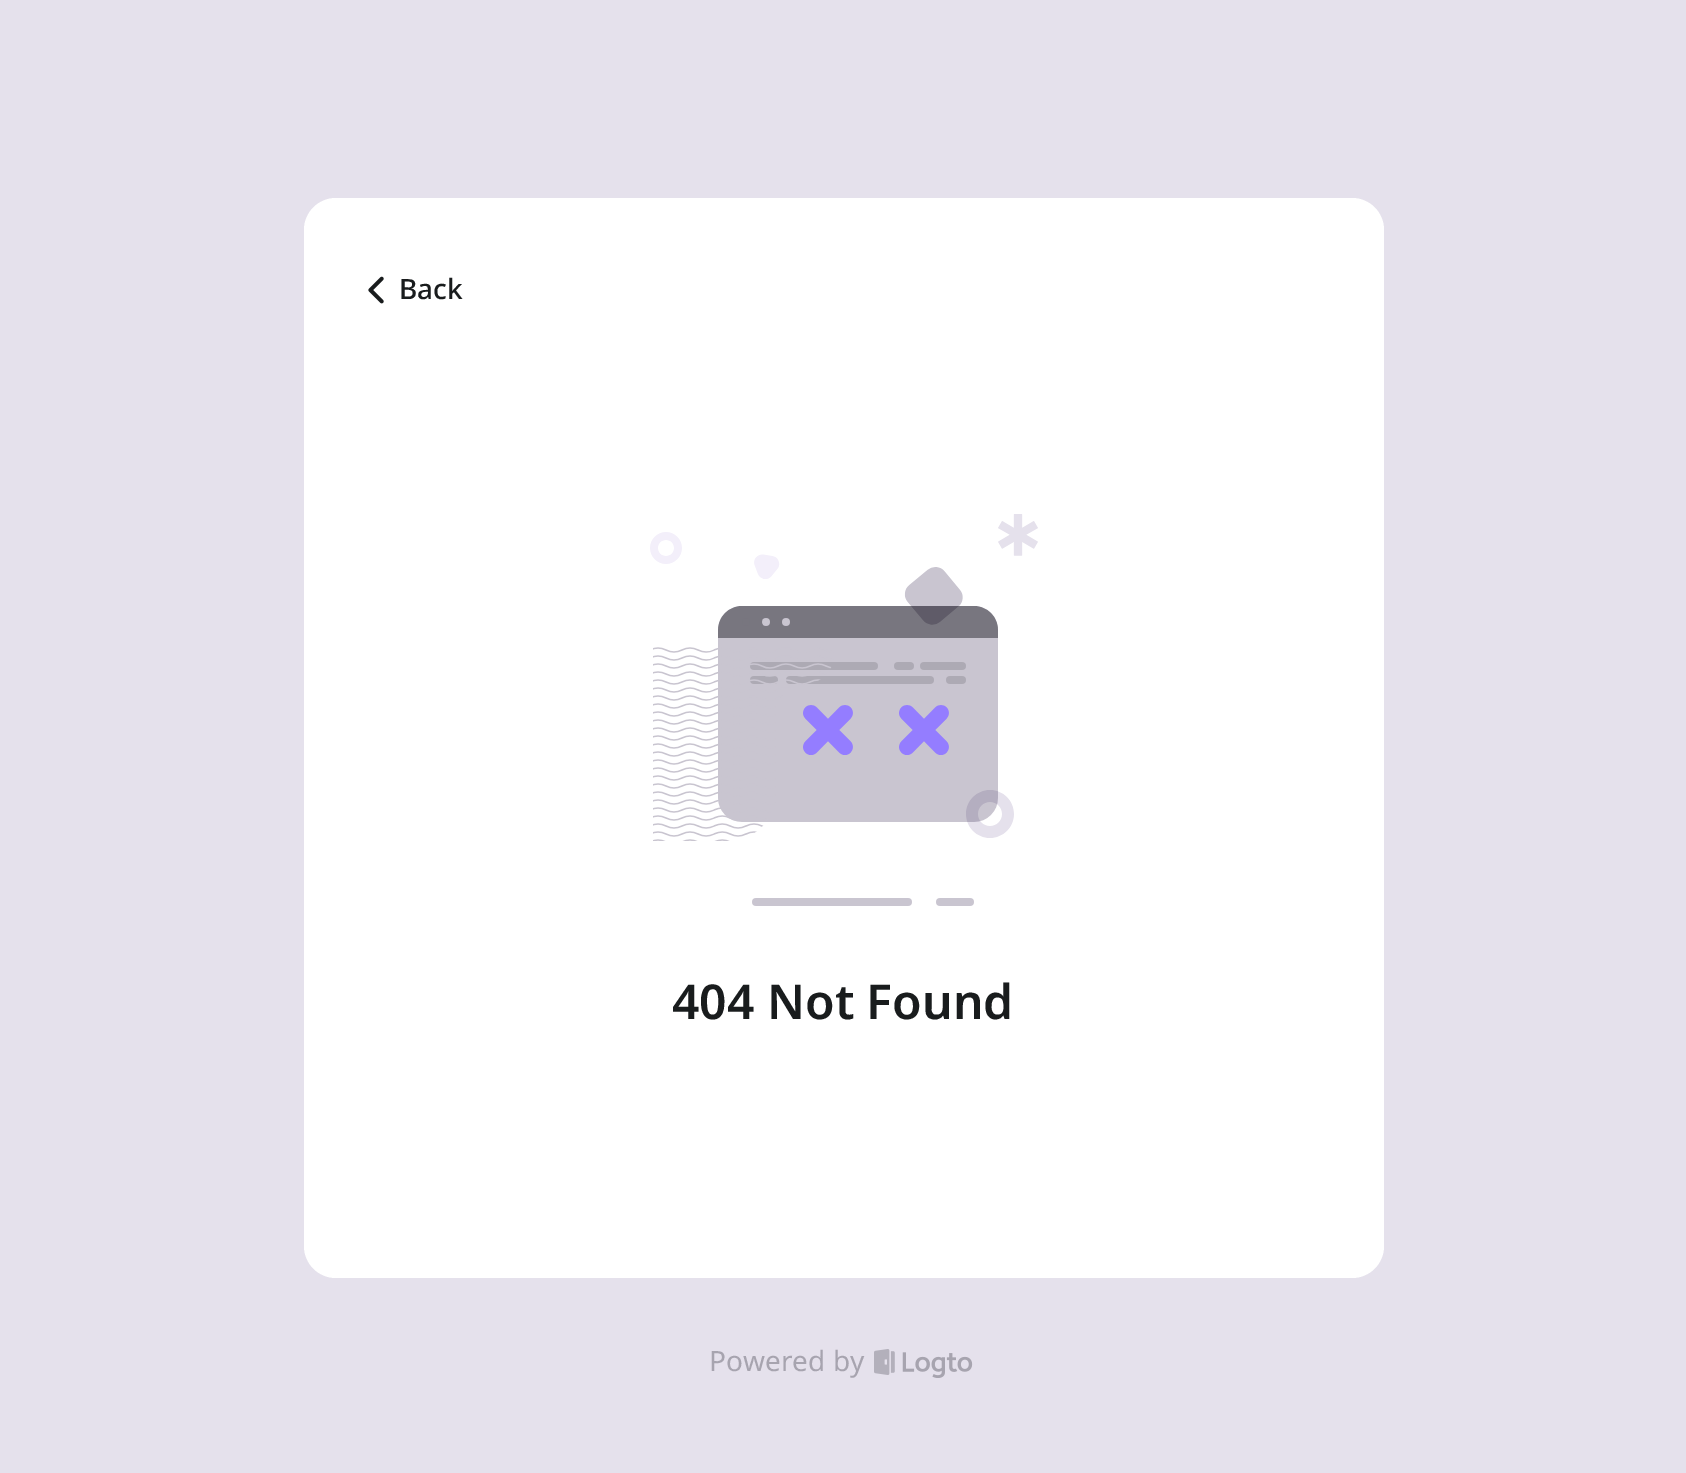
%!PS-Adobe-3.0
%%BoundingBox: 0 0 1686 1473
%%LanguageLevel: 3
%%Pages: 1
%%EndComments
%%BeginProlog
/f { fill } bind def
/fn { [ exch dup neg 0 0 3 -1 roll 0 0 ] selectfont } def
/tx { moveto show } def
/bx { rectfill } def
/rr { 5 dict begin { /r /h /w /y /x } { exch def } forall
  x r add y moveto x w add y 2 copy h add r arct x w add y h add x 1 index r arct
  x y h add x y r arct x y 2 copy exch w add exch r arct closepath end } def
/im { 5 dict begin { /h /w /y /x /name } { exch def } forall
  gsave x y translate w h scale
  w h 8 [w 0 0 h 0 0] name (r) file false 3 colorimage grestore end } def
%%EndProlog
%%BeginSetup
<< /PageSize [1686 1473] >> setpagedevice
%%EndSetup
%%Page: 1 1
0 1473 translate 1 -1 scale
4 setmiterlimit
0.898 0.882 0.925 setrgbcolor
0 0 1686 1473 bx
1 setgray
304 198 1080 1080 32 rr f
(image0.raw) 368 276 16 28 im
/NotoSans-Medium 28 fn
0.098 0.11 0.114 setrgbcolor
(Back) 399 299 tx
(image1.raw) 650 514 388 392 im
/NotoSans-SemiBold 48 fn
(404 Not Found) 672 1019 tx
/NotoSans-Regular 28 fn
0.655 0.643 0.686 setrgbcolor
(Powered by) 709 1371 tx
(image2.raw) 874 1349 99 29 im
showpage
%%EOF
